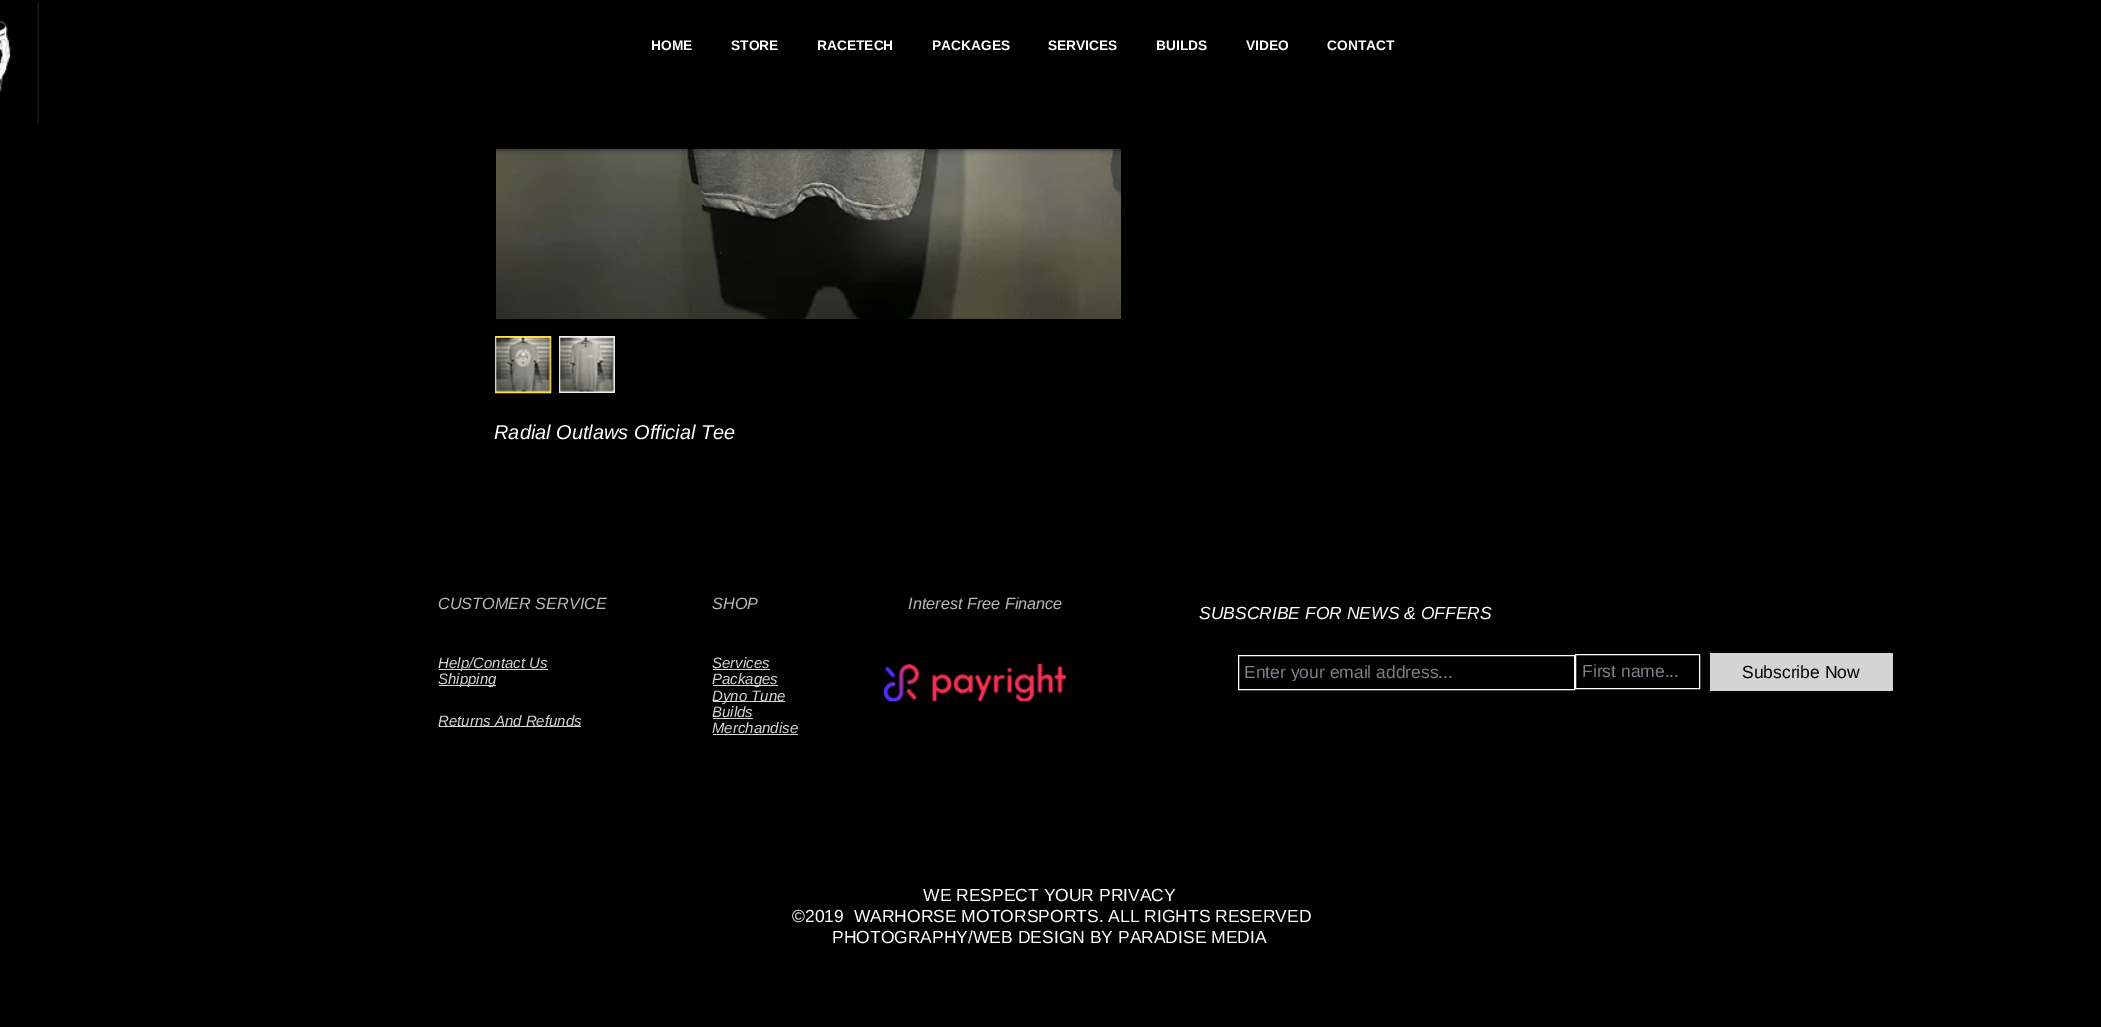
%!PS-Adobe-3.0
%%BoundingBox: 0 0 2101 1027
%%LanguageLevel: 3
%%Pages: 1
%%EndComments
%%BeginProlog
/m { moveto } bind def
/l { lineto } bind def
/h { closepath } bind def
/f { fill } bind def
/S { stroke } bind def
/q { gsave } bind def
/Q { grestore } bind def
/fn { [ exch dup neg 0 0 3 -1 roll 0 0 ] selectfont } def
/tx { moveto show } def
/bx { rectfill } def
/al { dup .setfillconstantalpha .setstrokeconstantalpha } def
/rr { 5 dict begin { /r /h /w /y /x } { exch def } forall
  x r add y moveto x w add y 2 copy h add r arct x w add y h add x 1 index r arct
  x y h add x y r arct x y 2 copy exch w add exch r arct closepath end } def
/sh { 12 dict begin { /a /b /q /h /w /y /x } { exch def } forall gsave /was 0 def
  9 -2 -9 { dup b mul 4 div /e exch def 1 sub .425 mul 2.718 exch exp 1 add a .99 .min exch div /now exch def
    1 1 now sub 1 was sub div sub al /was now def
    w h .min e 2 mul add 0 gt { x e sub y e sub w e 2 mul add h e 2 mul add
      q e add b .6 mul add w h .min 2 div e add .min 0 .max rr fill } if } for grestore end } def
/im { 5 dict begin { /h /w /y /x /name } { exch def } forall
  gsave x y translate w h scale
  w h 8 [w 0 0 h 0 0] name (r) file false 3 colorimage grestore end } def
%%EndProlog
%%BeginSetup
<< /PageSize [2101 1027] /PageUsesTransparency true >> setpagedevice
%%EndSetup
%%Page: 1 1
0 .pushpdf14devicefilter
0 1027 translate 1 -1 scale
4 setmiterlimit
0 setgray
0 0 2101 1027 bx
(image1.raw) 496 149 625 170 im
0 0 2101 149 0 3 0.7 sh
(image0.raw) 0 2 39 122 im
/LiberationSans-Bold 13.75 fn
1 setgray
(HOME) 651 50 tx
(STORE) 731 50 tx
(RACETECH) 817 50 tx
(PACKAGES) 932 50 tx
(SERVICES) 1048 50 tx
(BUILDS) 1156 50 tx
(VIDEO) 1246 50 tx
(CONTACT) 1327 50 tx
0.929 setgray
495.5 336.5 m 550.5 336.5 l 550.5 392.5 l 495.5 392.5 l h q f Q
1 0.878 0.259 setrgbcolor
S
(image2.raw) 496 337 55 55 im
0.929 setgray
559 336 56 57 bx
(image3.raw) 559 337 56 55 im
/LiberationSans-Italic 20 fn
1 setgray
(Radial Outlaws Official Tee) 494 439 tx
/LiberationSans-Italic 16.25 fn
0.729 setgray
(CUSTOMER SERVICE) 438 609 tx
(SHOP) 712 609 tx
(Interest Free Finance) 908 609 tx
0.831 setgray
439 669 109 1 bx
/LiberationSans-Italic 15 fn
(Help/Contact Us) 438 668 tx
439 685 57 1 bx
(Shipping) 438 684 tx
(Services) 712 668 tx
713 669 57 1 bx
713 685 65 1 bx
(Packages) 712 684 tx
713 701 72 1 bx
(Dyno Tune) 712 701 tx
(Builds) 712 717 tx
713 718 40 1 bx
(Merchandise) 712 733 tx
713 734 85 1 bx
(image4.raw) 883 664 184 38 im
/LiberationSans-Italic 17.5 fn
1 setgray
(SUBSCRIBE FOR NEWS & OFFERS) 1199 619 tx
1238.5 655.5 336 34 rectstroke
q
1245 661 325 20 rectclip
/LiberationSans-Regular 17.5 fn
0.498 0.502 0.541 setrgbcolor
(Enter your email address...) 1244 678 tx
Q
1575.5 654.5 124 34 rectstroke
/LiberationSans-Regular 17.5 fn
0.498 0.502 0.541 setrgbcolor
(First name...) 1582 677 tx
0.831 setgray
1710 653 183 38 bx
0 setgray
(Subscribe Now) 1742 678 tx
0.831 setgray
439 726 142 1 bx
/LiberationSans-Italic 15 fn
(Returns And Refunds) 438 726 tx
/LiberationSans-Regular 17.5 fn
1 setgray
(WE RESPECT YOUR PRIVACY) 923 901 tx
(©2019  WARHORSE MOTORSPORTS. ALL RIGHTS RESERVED) 792 922 tx
(PHOTOGRAPHY/WEB DESIGN BY PARADISE MEDIA) 832 943 tx
.poppdf14devicefilter showpage
%%EOF
